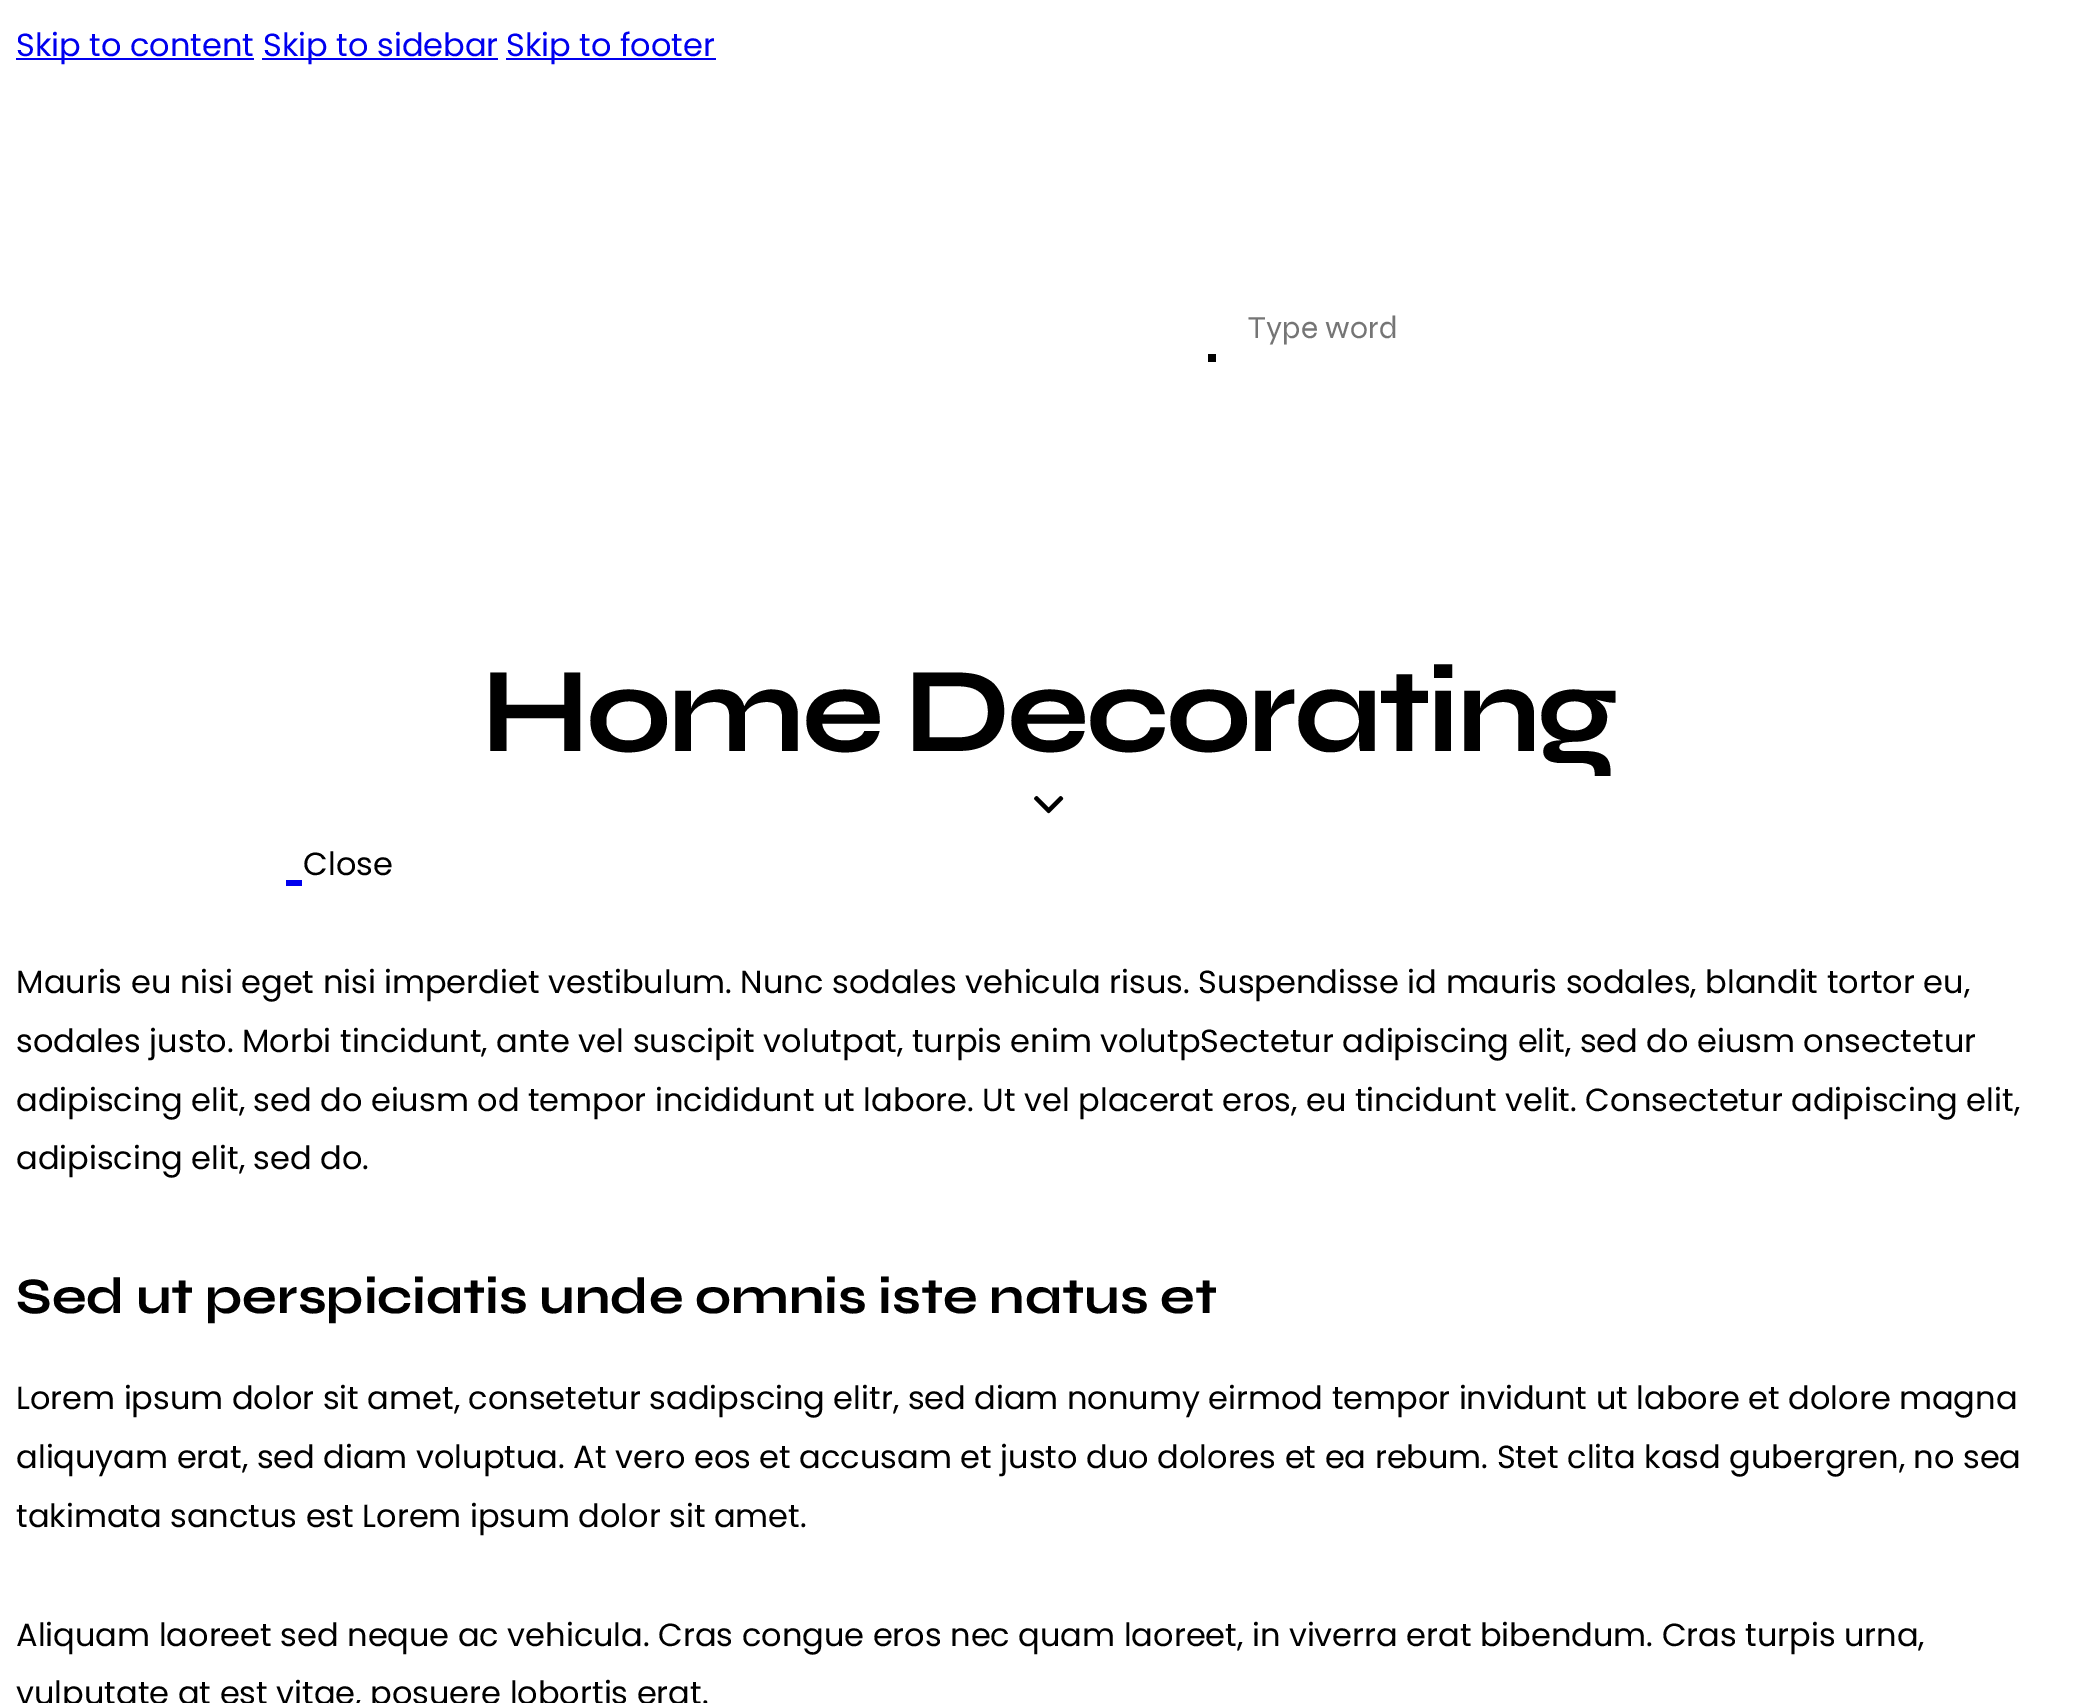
%!PS-Adobe-3.0
%%BoundingBox: 0 0 2098 1703
%%LanguageLevel: 3
%%Pages: 1
%%EndComments
%%BeginProlog
/m { moveto } bind def
/fn { [ exch dup neg 0 0 3 -1 roll 0 0 ] selectfont } def
/tx { moveto show } def
/bx { rectfill } def
/im { 5 dict begin { /h /w /y /x /name } { exch def } forall
  gsave x y translate w h scale
  w h 8 [w 0 0 h 0 0] name (r) file false 3 colorimage grestore end } def
%%EndProlog
%%BeginSetup
<< /PageSize [2098 1703] >> setpagedevice
%%EndSetup
%%Page: 1 1
0 1703 translate 1 -1 scale
4 setmiterlimit
1 setgray
0 0 2098 1703 bx
0 0 0.933 setrgbcolor
16 58 238 2 bx
/Poppins-Regular 32 fn
(Skip to content) 16 56 tx
262 58 236 2 bx
(Skip to sidebar) 263 56 tx
506 58 210 2 bx
(Skip to footer) 506 56 tx
/Syne-Regular 32 fn
0.459 setgray
1248 338 m 0.25 0 (Type word) ashow
0 setgray
1208 354 8 8 bx
/Syne-Bold 121.5 fn
481 751 m -3 0 32 -3.4 0 (Home Decorating) awidthshow
(image0.raw) 1034 796 30 18 im
/Poppins-Regular 32 fn
(Close) 303 875 tx
0 0 0.933 setrgbcolor
286 880 16 6 bx
0 setgray
(Mauris eu nisi eget nisi imperdiet vestibulum. Nunc sodales vehicula risus. Suspendisse id mauris sodales, blandit tortor eu,) 16 993 tx
(sodales justo. Morbi tincidunt, ante vel suscipit volutpat, turpis enim volutpSectetur adipiscing elit, sed do eiusm onsectetur) 16 1052 tx
(adipiscing elit, sed do eiusm od tempor incididunt ut labore. Ut vel placerat eros, eu tincidunt velit. Consectetur adipiscing elit,) 16 1111 tx
(adipiscing elit, sed do.) 16 1169 tx
/Syne-Bold 51.2 fn
16 1313 m -0.75 0 32 (Sed ut perspiciatis unde omnis iste natus et) widthshow
/Poppins-Regular 32 fn
(Lorem ipsum dolor sit amet, consetetur sadipscing elitr, sed diam nonumy eirmod tempor invidunt ut labore et dolore magna) 16 1409 tx
(aliquyam erat, sed diam voluptua. At vero eos et accusam et justo duo dolores et ea rebum. Stet clita kasd gubergren, no sea) 16 1468 tx
(takimata sanctus est Lorem ipsum dolor sit amet.) 16 1527 tx
(Aliquam laoreet sed neque ac vehicula. Cras congue eros nec quam laoreet, in viverra erat bibendum. Cras turpis urna,) 16 1646 tx
(vulputate at est vitae, posuere lobortis erat.) 16 1704 tx
showpage
%%EOF
